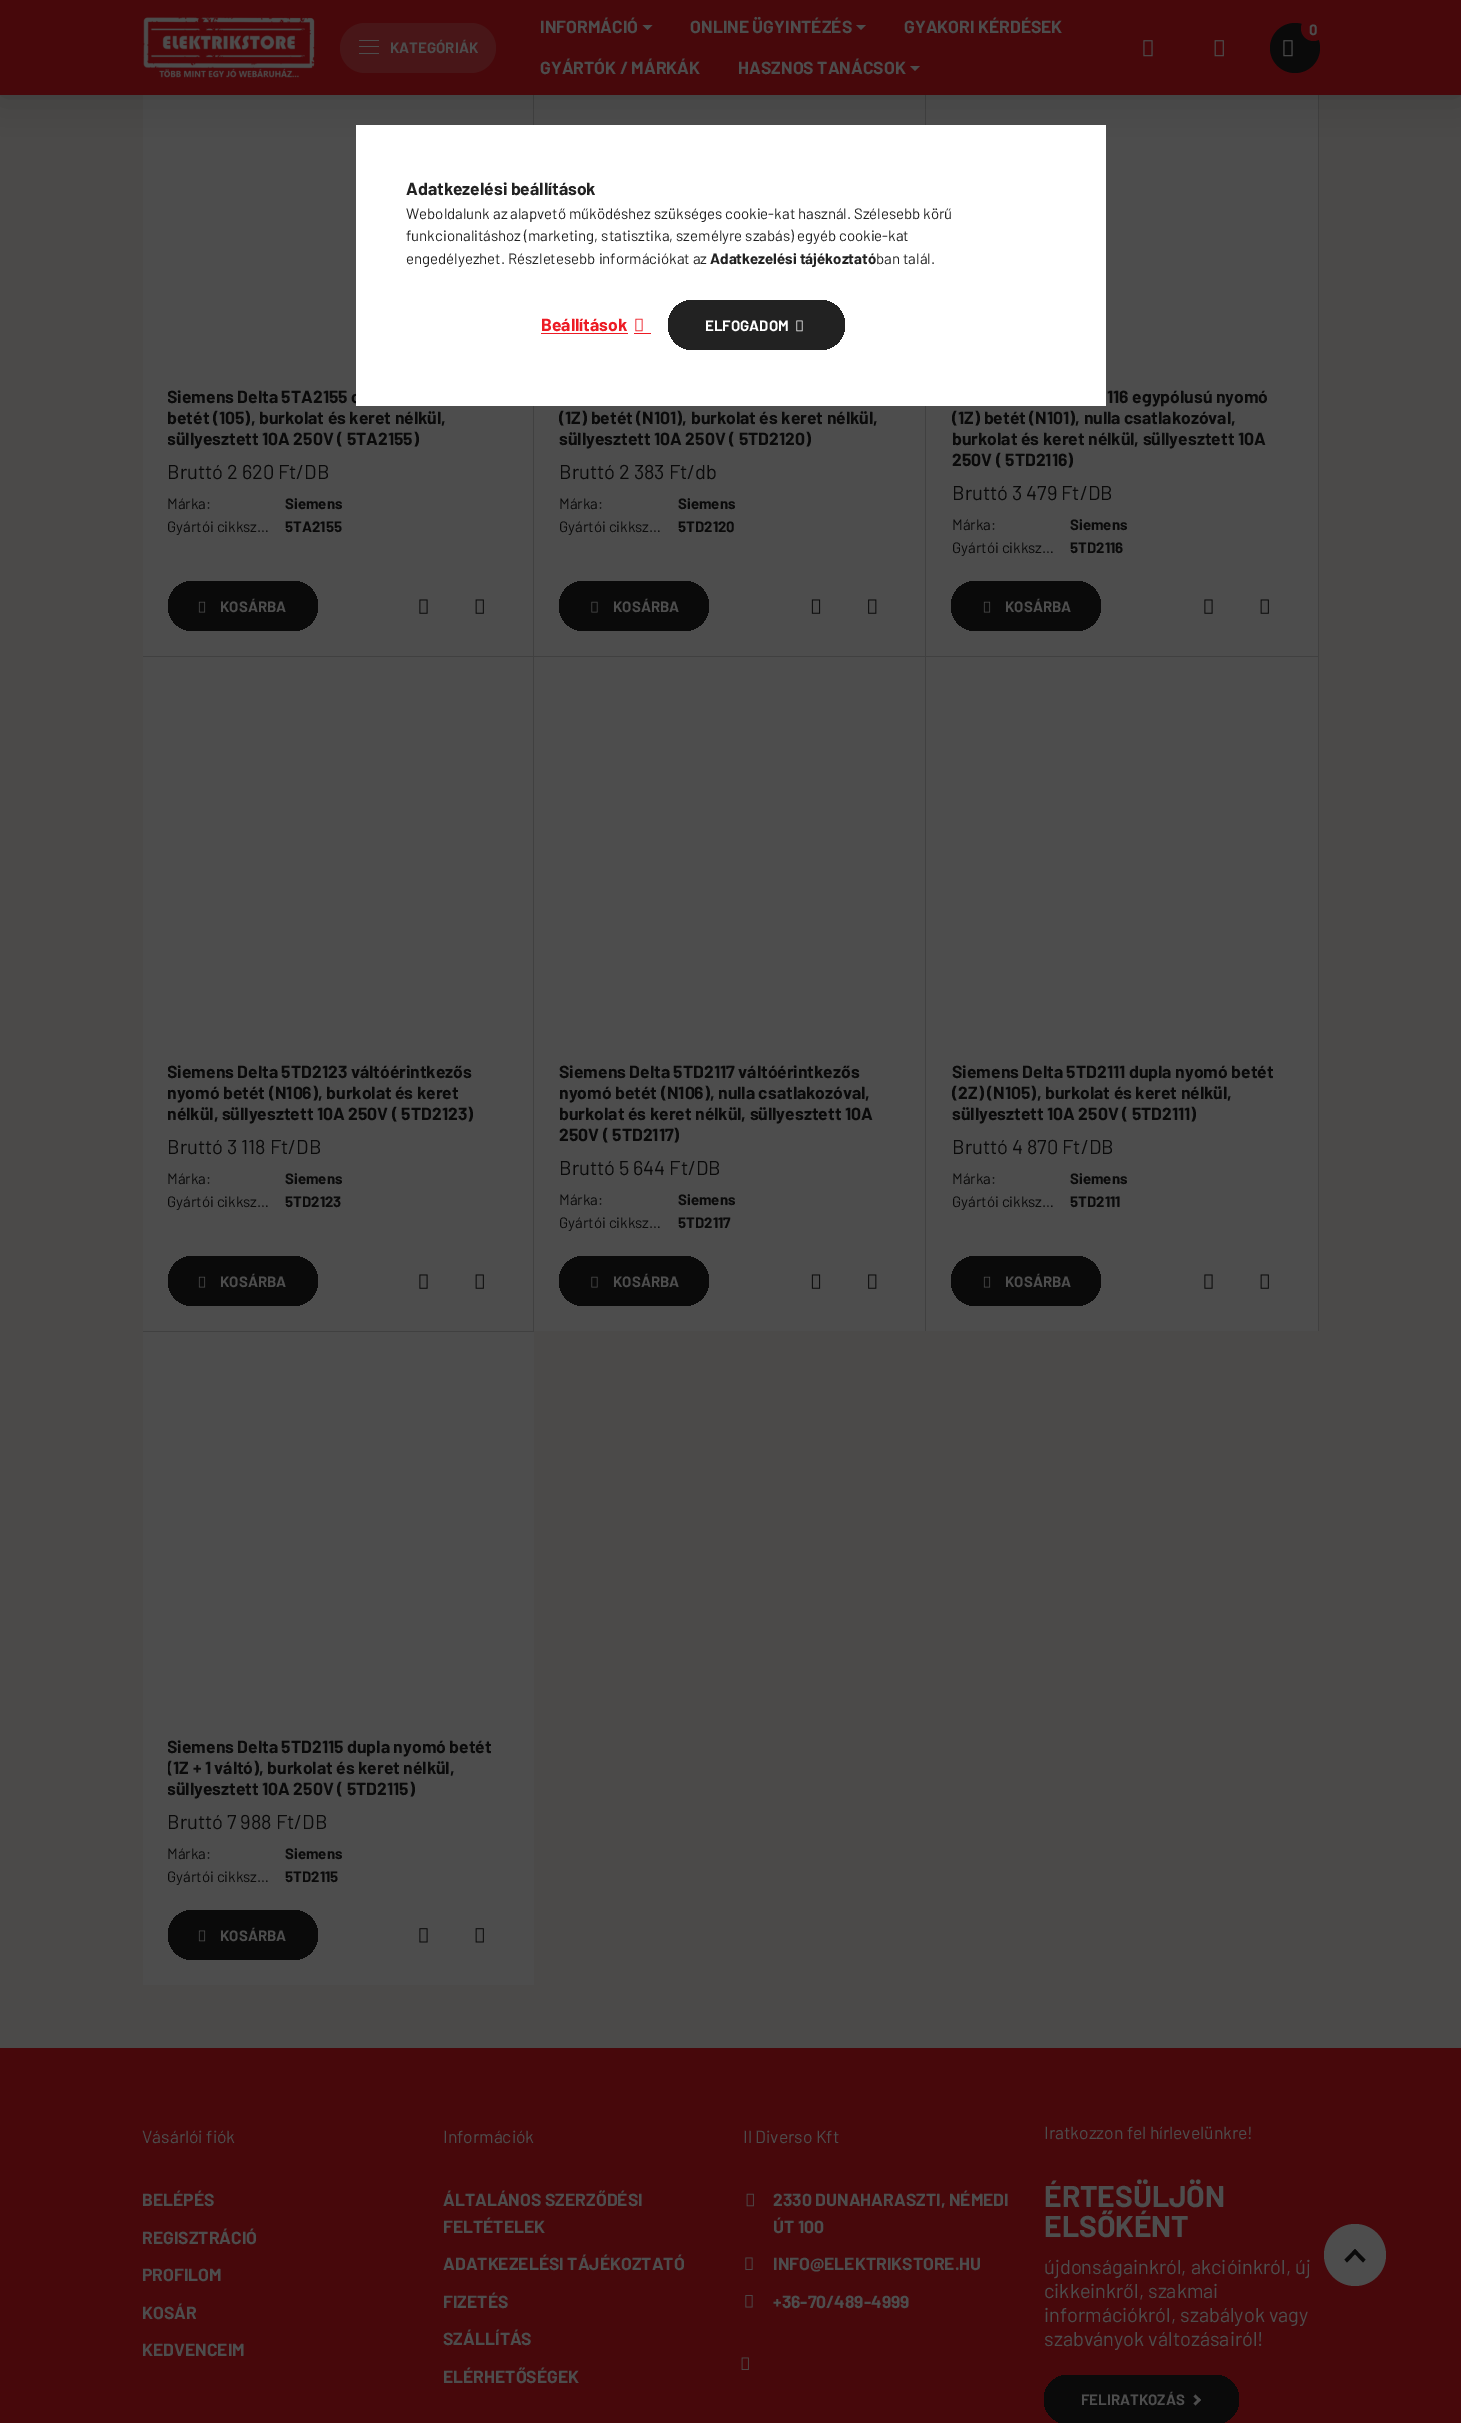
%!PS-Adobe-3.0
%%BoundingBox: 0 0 1461 2423
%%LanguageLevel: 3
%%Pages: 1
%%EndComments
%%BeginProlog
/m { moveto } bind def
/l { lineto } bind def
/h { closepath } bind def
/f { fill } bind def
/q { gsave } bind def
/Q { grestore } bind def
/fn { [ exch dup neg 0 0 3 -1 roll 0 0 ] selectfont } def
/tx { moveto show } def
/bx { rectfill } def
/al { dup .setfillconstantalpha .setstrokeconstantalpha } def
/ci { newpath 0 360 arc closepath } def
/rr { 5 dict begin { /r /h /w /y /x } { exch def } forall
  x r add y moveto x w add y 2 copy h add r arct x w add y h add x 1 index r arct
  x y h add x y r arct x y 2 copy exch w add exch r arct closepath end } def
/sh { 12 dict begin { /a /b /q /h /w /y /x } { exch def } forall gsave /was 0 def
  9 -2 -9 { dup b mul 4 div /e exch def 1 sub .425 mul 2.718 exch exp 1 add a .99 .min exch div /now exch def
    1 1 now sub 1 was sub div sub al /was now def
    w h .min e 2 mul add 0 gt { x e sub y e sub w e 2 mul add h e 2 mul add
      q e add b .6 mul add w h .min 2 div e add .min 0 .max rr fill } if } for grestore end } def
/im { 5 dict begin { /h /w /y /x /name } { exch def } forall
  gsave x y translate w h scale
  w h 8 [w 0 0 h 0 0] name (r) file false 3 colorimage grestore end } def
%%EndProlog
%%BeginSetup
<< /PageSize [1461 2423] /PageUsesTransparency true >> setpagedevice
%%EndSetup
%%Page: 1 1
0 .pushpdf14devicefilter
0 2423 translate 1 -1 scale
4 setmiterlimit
0.294 0.29 0.286 setrgbcolor
0 0 1461 2423 bx
0.302 setgray
143 95 390 561 bx
0.251 setgray
533 95 1 561 bx
0.302 setgray
534 95 391 561 bx
0.251 setgray
925 95 1 561 bx
0.302 setgray
926 95 392 561 bx
0.251 setgray
1318 95 1 561 bx
0 setgray
0 0 1461 95 0 19 0.2 sh
0.278 0.031 0.043 setrgbcolor
0 0 1461 95 bx
(image0.raw) 143 17 172 61 im
0.282 0.086 0.094 setrgbcolor
340 23 156 50 25 rr f
0.302 setgray
359 40 20 1 bx
359 46 20 1 bx
359 53 20 1 bx
/Barlow-Bold 15 fn
(KATEGÓRIÁK) 390 53 tx
/Barlow-Bold 17.5 fn
(INFORMÁCIÓ) 540 33 tx
642.5 25 m 652.5 25 l 647.5 30 l h f
(ONLINE ÜGYINTÉZÉS) 690 33 tx
856 25 m 866 25 l 861 30 l h f
(GYAKORI KÉRDÉSEK) 904 33 tx
(GYÁRTÓK / MÁRKÁK) 540 74 tx
(HASZNOS TANÁCSOK) 738 74 tx
910 66 m 920 66 l 915 71 l h f
0.039 setgray
1295 48 25 ci f
0.278 0.031 0.043 setrgbcolor
1313.5 28.5 12.5 ci f
/Barlow-Bold 15 fn
0.302 setgray
(0) 1309 35 tx
(image1.raw) 1283 40 10 17 im
(image2.raw) 1143 40 10 17 im
(image3.raw) 1214 40 10 17 im
q
168 386 341 64 rectclip
/Barlow-Bold 17.5 fn
0.039 setgray
(Siemens Delta 5TA2155 c) 167 403 tx
(betét \(105\), burkolat és keret nélkül,) 167 424 tx
(süllyesztett 10A 250V \( 5TA2155\)) 167 445 tx
Q
/Barlow-Regular 20 fn
0.039 setgray
(Bruttó 2 620 Ft/DB) 167 479 tx
/Barlow-Regular 15 fn
(Márka:) 167 509 tx
/Barlow-Bold 15 fn
(Siemens) 285 509 tx
/Barlow-Regular 15 fn
(Gyártói cikksz…) 167 532 tx
/Barlow-Bold 15 fn
(5TA2155) 285 532 tx
q 168 581 150 50 25 rr clip newpath
<< /ShadingType 2 /ColorSpace /DeviceRGB /Coords [168 606 618 606] /Extend [true true] /Function << /FunctionType 3 /Domain [0 1] /Functions [<< /FunctionType 2 /Domain [0 1] /C0 [0.039 0.039 0.039] /C1 [0.039 0.039 0.039] /N 1 >> << /FunctionType 2 /Domain [0 1] /C0 [0.039 0.039 0.039] /C1 [0.278 0.031 0.043] /N 1 >> << /FunctionType 2 /Domain [0 1] /C0 [0.278 0.031 0.043] /C1 [0.278 0.031 0.043] /N 1 >>] /Bounds [0.33 0.67] /Encode [0 1 0 1 0 1] >> >> shfill Q
(image4.raw) 198 601 8 12 im
0.302 setgray
(KOSÁRBA) 220 612 tx
(image5.raw) 419 599 9 15 im
(image6.raw) 475 599 9 15 im
/Barlow-Bold 17.5 fn
0.039 setgray
(\(1Z\) betét \(N101\), burkolat és keret nélkül,) 559 424 tx
(süllyesztett 10A 250V \( 5TD2120\)) 559 445 tx
/Barlow-Regular 20 fn
(Bruttó 2 383 Ft/db) 559 479 tx
/Barlow-Regular 15 fn
(Márka:) 559 509 tx
/Barlow-Bold 15 fn
(Siemens) 678 509 tx
/Barlow-Regular 15 fn
(Gyártói cikksz…) 559 532 tx
/Barlow-Bold 15 fn
(5TD2120) 678 532 tx
q 559 581 150 50 25 rr clip newpath
<< /ShadingType 2 /ColorSpace /DeviceRGB /Coords [559 606 1009 606] /Extend [true true] /Function << /FunctionType 3 /Domain [0 1] /Functions [<< /FunctionType 2 /Domain [0 1] /C0 [0.039 0.039 0.039] /C1 [0.039 0.039 0.039] /N 1 >> << /FunctionType 2 /Domain [0 1] /C0 [0.039 0.039 0.039] /C1 [0.278 0.031 0.043] /N 1 >> << /FunctionType 2 /Domain [0 1] /C0 [0.278 0.031 0.043] /C1 [0.278 0.031 0.043] /N 1 >>] /Bounds [0.33 0.67] /Encode [0 1 0 1 0 1] >> >> shfill Q
(image7.raw) 591 601 7 12 im
0.302 setgray
(KOSÁRBA) 613 612 tx
(image8.raw) 811 599 10 15 im
(image9.raw) 868 599 9 15 im
/Barlow-Bold 17.5 fn
0.039 setgray
(116 egypólusú nyomó) 1107 403 tx
(\(1Z\) betét \(N101\), nulla csatlakozóval,) 952 424 tx
(burkolat és keret nélkül, süllyesztett 10A) 952 445 tx
(250V \( 5TD2116\)) 952 466 tx
/Barlow-Regular 20 fn
(Bruttó 3 479 Ft/DB) 952 500 tx
/Barlow-Regular 15 fn
(Márka:) 952 530 tx
/Barlow-Bold 15 fn
(Siemens) 1070 530 tx
/Barlow-Regular 15 fn
(Gyártói cikksz…) 952 553 tx
/Barlow-Bold 15 fn
(5TD2116) 1070 553 tx
q 951 581 150 50 25 rr clip newpath
<< /ShadingType 2 /ColorSpace /DeviceRGB /Coords [951 606 1401 606] /Extend [true true] /Function << /FunctionType 3 /Domain [0 1] /Functions [<< /FunctionType 2 /Domain [0 1] /C0 [0.039 0.039 0.039] /C1 [0.039 0.039 0.039] /N 1 >> << /FunctionType 2 /Domain [0 1] /C0 [0.039 0.039 0.039] /C1 [0.278 0.031 0.043] /N 1 >> << /FunctionType 2 /Domain [0 1] /C0 [0.278 0.031 0.043] /C1 [0.278 0.031 0.043] /N 1 >>] /Bounds [0.33 0.67] /Encode [0 1 0 1 0 1] >> >> shfill Q
(image4.raw) 983 601 8 12 im
0.302 setgray
(KOSÁRBA) 1005 612 tx
(image5.raw) 1204 599 9 15 im
(image6.raw) 1260 599 9 15 im
143 657 390 674 bx
0.251 setgray
143 656 1176 1 bx
q
168 1061 341 63 rectclip
/Barlow-Bold 17.5 fn
0.039 setgray
(Siemens Delta 5TD2123 váltóérintkezős) 167 1078 tx
(nyomó betét \(N106\), burkolat és keret) 167 1099 tx
(nélkül, süllyesztett 10A 250V \( 5TD2123\)) 167 1120 tx
Q
/Barlow-Regular 20 fn
0.039 setgray
(Bruttó 3 118 Ft/DB) 167 1154 tx
/Barlow-Regular 15 fn
(Márka:) 167 1184 tx
/Barlow-Bold 15 fn
(Siemens) 285 1184 tx
/Barlow-Regular 15 fn
(Gyártói cikksz…) 167 1207 tx
/Barlow-Bold 15 fn
(5TD2123) 285 1207 tx
q 168 1256 150 50 25 rr clip newpath
<< /ShadingType 2 /ColorSpace /DeviceRGB /Coords [168 1281 618 1281] /Extend [true true] /Function << /FunctionType 3 /Domain [0 1] /Functions [<< /FunctionType 2 /Domain [0 1] /C0 [0.039 0.039 0.039] /C1 [0.039 0.039 0.039] /N 1 >> << /FunctionType 2 /Domain [0 1] /C0 [0.039 0.039 0.039] /C1 [0.278 0.031 0.043] /N 1 >> << /FunctionType 2 /Domain [0 1] /C0 [0.278 0.031 0.043] /C1 [0.278 0.031 0.043] /N 1 >>] /Bounds [0.33 0.67] /Encode [0 1 0 1 0 1] >> >> shfill Q
(image4.raw) 198 1276 8 12 im
0.302 setgray
(KOSÁRBA) 220 1287 tx
(image5.raw) 419 1274 9 15 im
(image6.raw) 475 1274 9 15 im
0.251 setgray
533 656 1 675 bx
0.302 setgray
534 657 391 674 bx
/Barlow-Bold 17.5 fn
0.039 setgray
(Siemens Delta 5TD2117 váltóérintkezős) 559 1078 tx
(nyomó betét \(N106\), nulla csatlakozóval,) 559 1099 tx
(burkolat és keret nélkül, süllyesztett 10A) 559 1120 tx
(250V \( 5TD2117\)) 559 1141 tx
/Barlow-Regular 20 fn
(Bruttó 5 644 Ft/DB) 559 1175 tx
/Barlow-Regular 15 fn
(Márka:) 559 1205 tx
/Barlow-Bold 15 fn
(Siemens) 678 1205 tx
/Barlow-Regular 15 fn
(Gyártói cikksz…) 559 1228 tx
/Barlow-Bold 15 fn
(5TD2117) 678 1228 tx
q 559 1256 150 50 25 rr clip newpath
<< /ShadingType 2 /ColorSpace /DeviceRGB /Coords [559 1281 1009 1281] /Extend [true true] /Function << /FunctionType 3 /Domain [0 1] /Functions [<< /FunctionType 2 /Domain [0 1] /C0 [0.039 0.039 0.039] /C1 [0.039 0.039 0.039] /N 1 >> << /FunctionType 2 /Domain [0 1] /C0 [0.039 0.039 0.039] /C1 [0.278 0.031 0.043] /N 1 >> << /FunctionType 2 /Domain [0 1] /C0 [0.278 0.031 0.043] /C1 [0.278 0.031 0.043] /N 1 >>] /Bounds [0.33 0.67] /Encode [0 1 0 1 0 1] >> >> shfill Q
(image7.raw) 591 1276 7 12 im
0.302 setgray
(KOSÁRBA) 613 1287 tx
(image8.raw) 811 1274 10 15 im
(image9.raw) 868 1274 9 15 im
0.251 setgray
925 656 1 675 bx
0.302 setgray
926 657 392 674 bx
/Barlow-Bold 17.5 fn
0.039 setgray
(Siemens Delta 5TD2111 dupla nyomó betét) 952 1078 tx
(\(2Z\) \(N105\), burkolat és keret nélkül,) 952 1099 tx
(süllyesztett 10A 250V \( 5TD2111\)) 952 1120 tx
/Barlow-Regular 20 fn
(Bruttó 4 870 Ft/DB) 952 1154 tx
/Barlow-Regular 15 fn
(Márka:) 952 1184 tx
/Barlow-Bold 15 fn
(Siemens) 1070 1184 tx
/Barlow-Regular 15 fn
(Gyártói cikksz…) 952 1207 tx
/Barlow-Bold 15 fn
(5TD2111) 1070 1207 tx
q 951 1256 150 50 25 rr clip newpath
<< /ShadingType 2 /ColorSpace /DeviceRGB /Coords [951 1281 1401 1281] /Extend [true true] /Function << /FunctionType 3 /Domain [0 1] /Functions [<< /FunctionType 2 /Domain [0 1] /C0 [0.039 0.039 0.039] /C1 [0.039 0.039 0.039] /N 1 >> << /FunctionType 2 /Domain [0 1] /C0 [0.039 0.039 0.039] /C1 [0.278 0.031 0.043] /N 1 >> << /FunctionType 2 /Domain [0 1] /C0 [0.278 0.031 0.043] /C1 [0.278 0.031 0.043] /N 1 >>] /Bounds [0.33 0.67] /Encode [0 1 0 1 0 1] >> >> shfill Q
(image4.raw) 983 1276 8 12 im
0.302 setgray
(KOSÁRBA) 1005 1287 tx
(image5.raw) 1204 1274 9 15 im
(image6.raw) 1260 1274 9 15 im
0.251 setgray
1318 656 1 675 bx
0.302 setgray
143 1332 391 653 bx
0.251 setgray
143 1331 391 1 bx
q
168 1736 341 63 rectclip
/Barlow-Bold 17.5 fn
0.039 setgray
(Siemens Delta 5TD2115 dupla nyomó betét) 167 1753 tx
(\(1Z + 1 váltó\), burkolat és keret nélkül,) 167 1774 tx
(süllyesztett 10A 250V \( 5TD2115\)) 167 1795 tx
Q
/Barlow-Regular 20 fn
0.039 setgray
(Bruttó 7 988 Ft/DB) 167 1829 tx
/Barlow-Regular 15 fn
(Márka:) 167 1859 tx
/Barlow-Bold 15 fn
(Siemens) 285 1859 tx
/Barlow-Regular 15 fn
(Gyártói cikksz…) 167 1882 tx
/Barlow-Bold 15 fn
(5TD2115) 285 1882 tx
q 168 1910 150 50 25 rr clip newpath
<< /ShadingType 2 /ColorSpace /DeviceRGB /Coords [168 1935 618 1935] /Extend [true true] /Function << /FunctionType 3 /Domain [0 1] /Functions [<< /FunctionType 2 /Domain [0 1] /C0 [0.039 0.039 0.039] /C1 [0.039 0.039 0.039] /N 1 >> << /FunctionType 2 /Domain [0 1] /C0 [0.039 0.039 0.039] /C1 [0.278 0.031 0.043] /N 1 >> << /FunctionType 2 /Domain [0 1] /C0 [0.278 0.031 0.043] /C1 [0.278 0.031 0.043] /N 1 >>] /Bounds [0.33 0.67] /Encode [0 1 0 1 0 1] >> >> shfill Q
(image10.raw) 198 1930 8 12 im
0.302 setgray
(KOSÁRBA) 220 1941 tx
(image11.raw) 419 1928 9 15 im
(image12.raw) 475 1928 9 15 im
0.278 0.031 0.043 setrgbcolor
0 2048 1461 375 bx
/Barlow-Regular 17.5 fn
0.302 setgray
(Vásárlói fiók) 142 2143 tx
/Barlow-Bold 17.5 fn
(BELÉPÉS) 142 2206 tx
(REGISZTRÁCIÓ) 142 2244 tx
(PROFILOM) 142 2281 tx
(KOSÁR) 142 2319 tx
(KEDVENCEIM) 142 2356 tx
/Barlow-Regular 17.5 fn
(Információk) 443 2143 tx
/Barlow-Bold 17.5 fn
(ÁLTALÁNOS SZERZŐDÉSI) 443 2206 tx
(FELTÉTELEK) 443 2233 tx
(ADATKEZELÉSI TÁJÉKOZTATÓ) 443 2270 tx
(FIZETÉS) 443 2308 tx
(SZÁLLÍTÁS) 443 2345 tx
(ELÉRHETŐSÉGEK) 443 2383 tx
/Barlow-Regular 17.5 fn
(Il Diverso Kft) 743 2143 tx
(image13.raw) 746 2193 8 14 im
/Barlow-Bold 17.5 fn
(2330 DUNAHARASZTI, NÉMEDI) 773 2206 tx
(ÚT 100) 773 2233 tx
(image14.raw) 745 2257 8 13 im
(INFO@ELEKTRIKSTORE.HU) 773 2270 tx
(image15.raw) 745 2295 8 13 im
(+36-70/489-4999) 773 2308 tx
(image16.raw) 741 2357 8 13 im
/Barlow-Regular 17.5 fn
(Iratkozzon fel hírlevelünkre!) 1044 2139 tx
/Barlow-Bold 30 fn
(ÉRTESÜLJÖN) 1044 2207 tx
(ELSŐKÉNT) 1044 2237 tx
/Barlow-Regular 20 fn
(újdonságainkról, akcióinkról, új) 1044 2274 tx
(cikkeinkről, szakmai) 1044 2298 tx
(információkról, szabályok vagy) 1044 2322 tx
(szabványok változásairól!) 1044 2346 tx
q 1044 2375 195 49 24.5 rr clip newpath
<< /ShadingType 2 /ColorSpace /DeviceRGB /Coords [1044 2399 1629 2399] /Extend [true true] /Function << /FunctionType 3 /Domain [0 1] /Functions [<< /FunctionType 2 /Domain [0 1] /C0 [0.039 0.039 0.039] /C1 [0.039 0.039 0.039] /N 1 >> << /FunctionType 2 /Domain [0 1] /C0 [0.039 0.039 0.039] /C1 [0.278 0.031 0.043] /N 1 >> << /FunctionType 2 /Domain [0 1] /C0 [0.278 0.031 0.043] /C1 [0.278 0.031 0.043] /N 1 >>] /Bounds [0.33 0.67] /Encode [0 1 0 1 0 1] >> >> shfill Q
/Barlow-Bold 15 fn
(FELIRATKOZÁS) 1081 2405 tx
1193.5 2403.5 m 1199 2398 l 1201 2400 l 1195.5 2405.5 l h f
1195.5 2394.5 m 1201 2400 l 1199 2401.5 l 1193.5 2396.5 l h f
1 setgray
356 125 750 281 bx
/Barlow-Bold 17.5 fn
0.133 setgray
(Adatkezelési beállítások) 406 195 tx
/Barlow-Regular 15 fn
(Weboldalunk az alapvető működéshez szükséges cookie-kat használ. Szélesebb körű) 406 219 tx
(funkcionalitáshoz \(marketing, statisztika, személyre szabás\) egyéb cookie-kat) 406 241 tx
(engedélyezhet. Részletesebb információkat az) 406 264 tx
/Barlow-Bold 15 fn
(Adatkezelési tájékoztató) 710 264 tx
/Barlow-Regular 15 fn
(ban talál.) 876 264 tx
/Barlow-Bold 17.5 fn
0.929 0.106 0.141 setrgbcolor
(Beállítások) 541 331 tx
541 333 87 1 bx
(image17.raw) 635 318 8 14 im
634 333 17 1 bx
q 668 300 177 50 25 rr clip newpath
<< /ShadingType 2 /ColorSpace /DeviceRGB /Coords [668 325 1200 325] /Extend [true true] /Function << /FunctionType 3 /Domain [0 1] /Functions [<< /FunctionType 2 /Domain [0 1] /C0 [0.133 0.133 0.133] /C1 [0.133 0.133 0.133] /N 1 >> << /FunctionType 2 /Domain [0 1] /C0 [0.133 0.133 0.133] /C1 [0.929 0.106 0.141] /N 1 >> << /FunctionType 2 /Domain [0 1] /C0 [0.929 0.106 0.141] /C1 [0.929 0.106 0.141] /N 1 >>] /Bounds [0.33 0.67] /Encode [0 1 0 1 0 1] >> >> shfill Q
/Barlow-Bold 15 fn
1 setgray
(ELFOGADOM) 705 331 tx
(image18.raw) 796 320 7 12 im
0.302 setgray
1355 2255 31 ci f
0.039 setgray
1363 2262.5 m 1352.5 2251.5 l 1355 2249 l 1365.5 2259.5 l h f
1344.5 2259.5 m 1355 2249 l 1357.5 2251.5 l 1347 2262.5 l h f
.poppdf14devicefilter showpage
%%EOF
